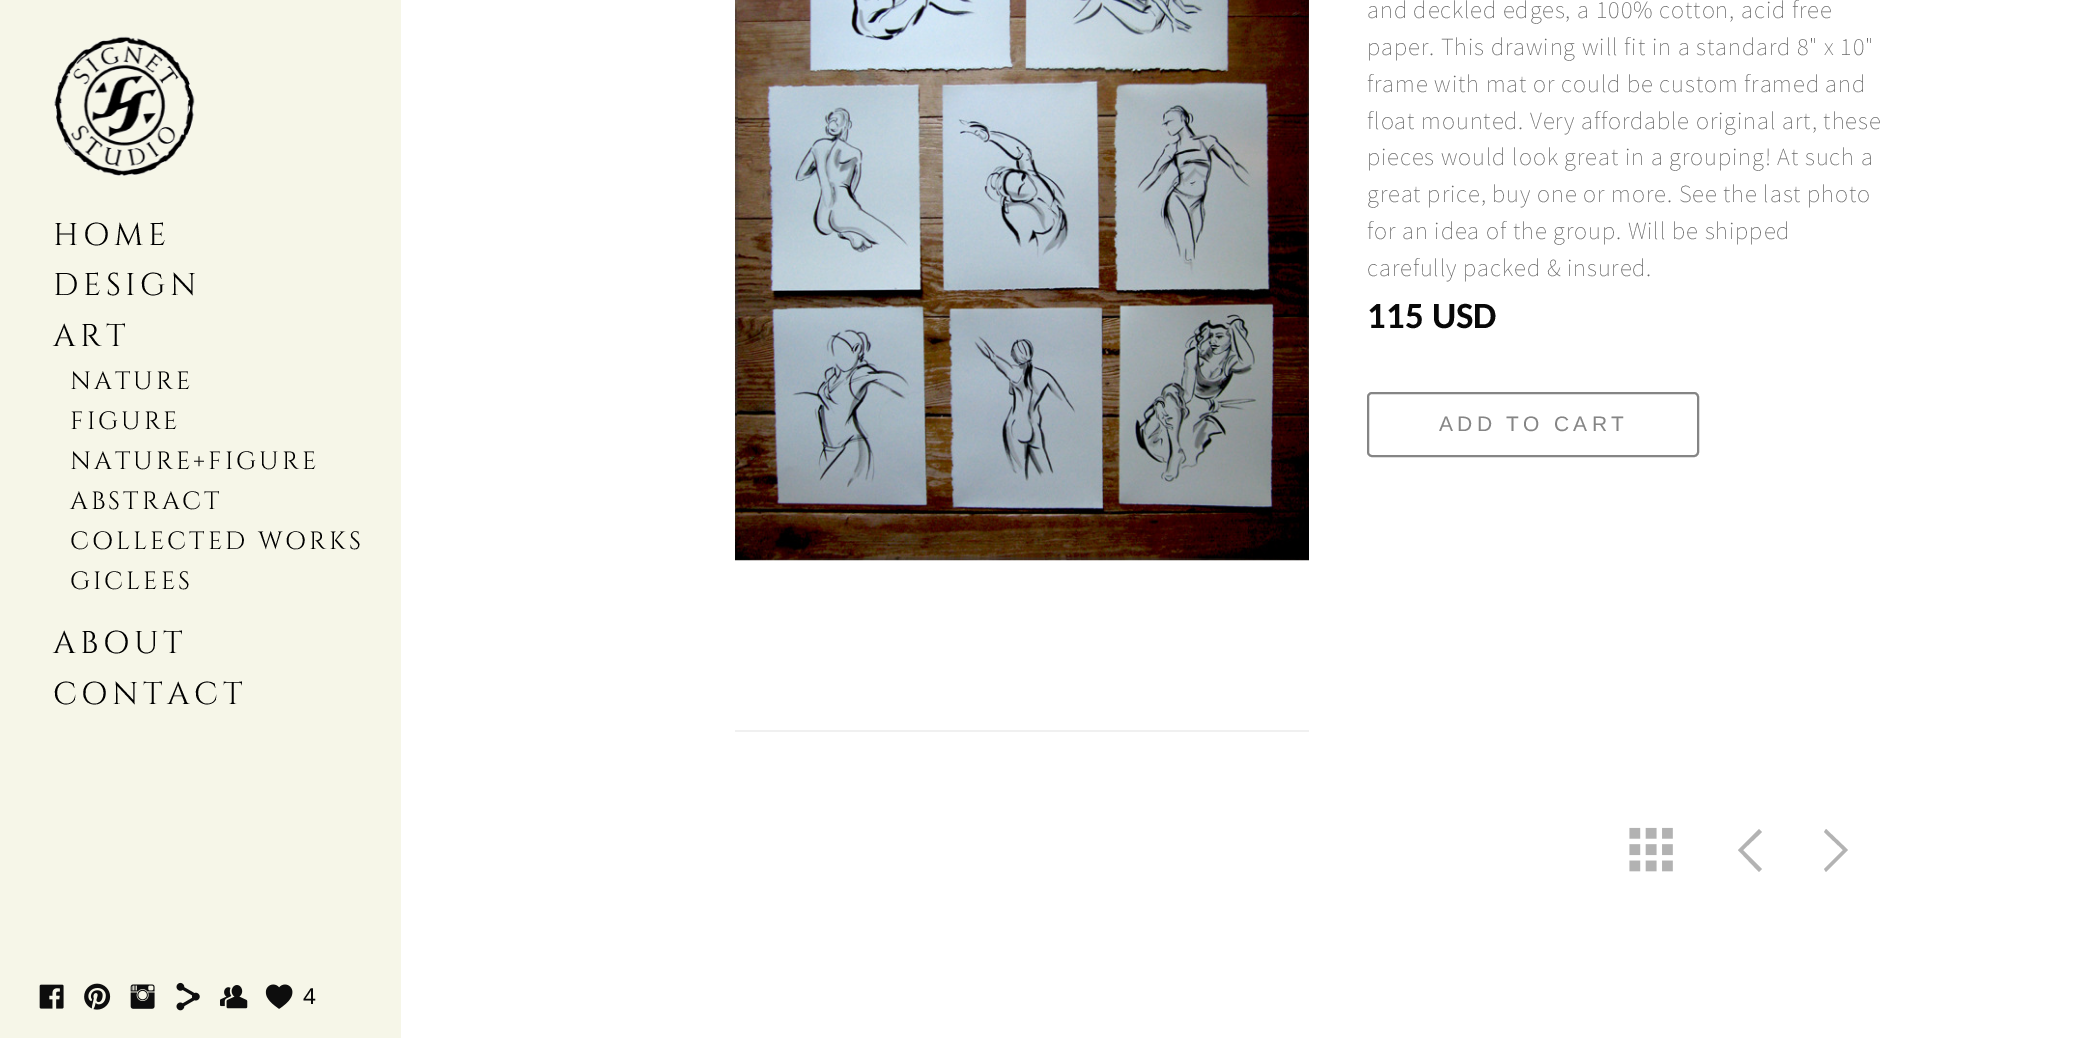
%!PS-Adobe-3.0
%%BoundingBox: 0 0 2094 1038
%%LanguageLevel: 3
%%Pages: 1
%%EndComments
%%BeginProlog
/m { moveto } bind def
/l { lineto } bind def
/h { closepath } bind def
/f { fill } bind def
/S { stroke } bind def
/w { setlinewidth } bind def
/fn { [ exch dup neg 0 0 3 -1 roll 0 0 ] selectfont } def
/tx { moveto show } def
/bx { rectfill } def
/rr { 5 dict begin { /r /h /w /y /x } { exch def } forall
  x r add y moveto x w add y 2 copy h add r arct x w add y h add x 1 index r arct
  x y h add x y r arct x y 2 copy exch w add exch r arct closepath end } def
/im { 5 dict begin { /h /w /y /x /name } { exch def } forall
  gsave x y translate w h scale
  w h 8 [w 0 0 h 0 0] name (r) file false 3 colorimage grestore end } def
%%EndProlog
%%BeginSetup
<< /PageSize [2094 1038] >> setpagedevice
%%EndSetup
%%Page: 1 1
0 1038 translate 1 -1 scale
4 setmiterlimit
1 setgray
0 0 2094 1038 bx
0.965 0.965 0.91 setrgbcolor
0 0 401 1038 bx
(image0.raw) 54 36 141 140 im
/Cinzel-Regular 31.5 fn
0 setgray
53 245 m 4.5 0 (HOME) ashow
53 295 m 4.5 0 (DESIGN) ashow
53 346 m 4.5 0 (ART) ashow
/Cinzel-Regular 25 fn
70 389 m 3 0 (NATURE) ashow
70 429 m 3 0 (FIGURE) ashow
70 469 m 3 0 (NATURE+FIGURE) ashow
70 509 m 3 0 (ABSTRACT) ashow
70 549 m 3 0 (COLLECTED WORKS) ashow
70 589 m 3 0 (GICLEES) ashow
/Cinzel-Regular 31.5 fn
53 653 m 4.5 0 (ABOUT) ashow
53 704 m 4.5 0 (CONTACT) ashow
0.941 setgray
735 730 574 2 bx
(image1.raw) 735 0 574 561 im
/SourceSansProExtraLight-ExtraLight 24.5 fn
0.4 setgray
1367 18 m 0.88 0 (and deckled edges, a 100% cotton, acid free) ashow
1367 55 m 0.88 0 (paper. This drawing will fit in a standard 8" x 10") ashow
1367 92 m 0.88 0 (frame with mat or could be custom framed and) ashow
1367 129 m 0.88 0 (float mounted. Very affordable original art, these) ashow
1367 165 m 0.88 0 (pieces would look great in a grouping! At such a) ashow
1367 202 m 0.88 0 (great price, buy one or more. See the last photo) ashow
1367 239 m 0.88 0 (for an idea of the group. Will be shipped) ashow
1367 276 m 0.88 0 (carefully packed & insured.) ashow
/Carlito-Bold 37 fn
0.031 setgray
(115 USD) 1367 328 tx
0.522 setgray
2 w
1368 393 330 63 4 rr S
/LiberationSans-Regular 21 fn
1439 431 m 4.25 0 (ADD TO CART) ashow
(image2.raw) 1629 827 44 45 im
0.702 setgray
1759 872 m 1762 869 l 1743 850 l 1762 832 l 1759 829 l 1738 850 l h f
1848 850 m 1826 829 l 1824 832 l 1843 850 l 1824 869 l 1826 872 l h f
(image3.raw) 39 984 25 25 im
(image4.raw) 84 983 27 27 im
(image5.raw) 130 984 25 25 im
(image6.raw) 176 982 24 29 im
(image7.raw) 220 985 28 24 im
(image8.raw) 265 984 28 25 im
/LiberationSans-Regular 23 fn
0.031 setgray
(4) 303 1004 tx
showpage
%%EOF
